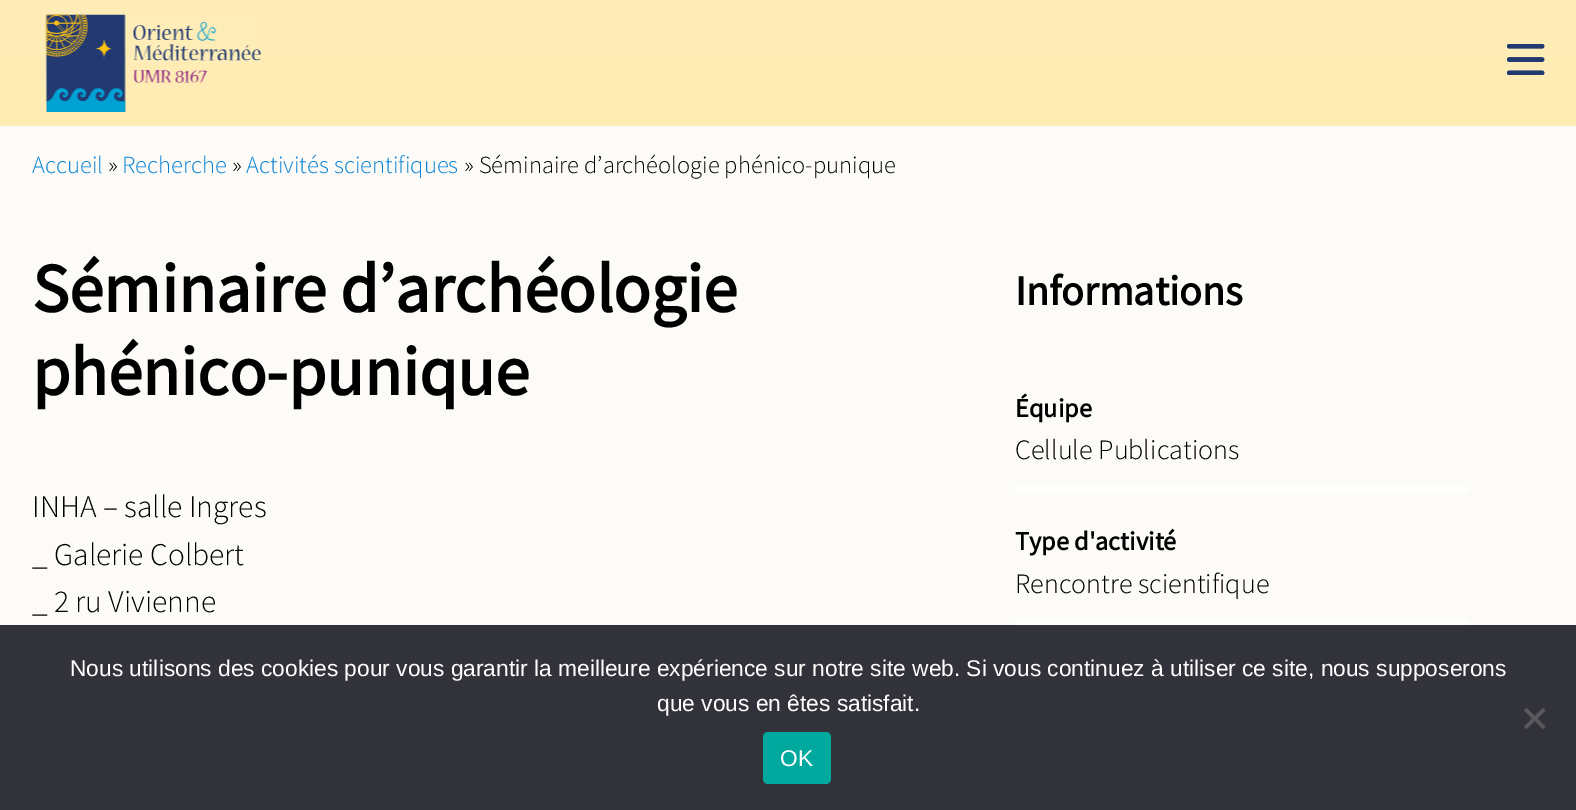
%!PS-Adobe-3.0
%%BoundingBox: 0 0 1576 810
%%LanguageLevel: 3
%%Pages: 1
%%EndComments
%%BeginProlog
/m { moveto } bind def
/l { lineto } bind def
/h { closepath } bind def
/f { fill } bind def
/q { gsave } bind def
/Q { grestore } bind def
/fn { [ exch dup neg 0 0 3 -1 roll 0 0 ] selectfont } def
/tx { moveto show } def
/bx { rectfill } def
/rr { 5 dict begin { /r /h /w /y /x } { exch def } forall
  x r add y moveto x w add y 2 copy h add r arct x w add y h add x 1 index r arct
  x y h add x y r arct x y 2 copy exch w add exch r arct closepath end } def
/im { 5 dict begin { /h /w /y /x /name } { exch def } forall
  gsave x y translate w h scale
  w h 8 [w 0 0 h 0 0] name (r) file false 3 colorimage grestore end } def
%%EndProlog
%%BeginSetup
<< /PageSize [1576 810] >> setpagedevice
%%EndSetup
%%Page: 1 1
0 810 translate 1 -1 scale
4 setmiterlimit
0.992 0.984 0.969 setrgbcolor
0 0 1576 810 bx
q 0 0 m 1576 0 l 1576 126 l 0 126 l h clip newpath
<< /ShadingType 2 /ColorSpace /DeviceRGB /Coords [788 0 788 126] /Extend [true true] /Function << /FunctionType 2 /Domain [0 1] /C0 [0.996 0.929 0.725] /C1 [1 0.925 0.698] /N 1 >> >> shfill Q
(image0.raw) 45 14 216 98 im
(image1.raw) 1507 44 38 31 im
/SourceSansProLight-Light 24.5 fn
0.027 0.51 0.839 setrgbcolor
(Accueil) 32 173 tx
0 setgray
(») 108 173 tx
0.027 0.51 0.839 setrgbcolor
(Recherche) 122 173 tx
0 setgray
(») 232 173 tx
0.027 0.51 0.839 setrgbcolor
(Activités scientifiques) 246 173 tx
0 setgray
(» Séminaire d’archéologie phénico-punique) 464 173 tx
/SourceSansPro-Bold 69.25 fn
(Séminaire d’archéologie) 32 312 tx
(phénico-punique) 32 395 tx
/SourceSansProLight-Light 31.5 fn
(INHA – salle Ingres) 32 517 tx
(_ Galerie Colbert) 32 565 tx
(_ 2 ru Vivienne) 32 612 tx
/SourceSansPro-Bold 42 fn
(Informations) 1015 305 tx
1 setgray
1015 487 455 5 bx
/SourceSansPro-Bold 26.25 fn
0 setgray
(Équipe) 1015 417 tx
/SourceSansProLight-Light 28 fn
(Cellule Publications) 1015 459 tx
1 setgray
1015 620 455 5 bx
/SourceSansPro-Bold 26.25 fn
0 setgray
(Type d'activité) 1015 550 tx
/SourceSansProLight-Light 28 fn
(Rencontre scientifique) 1015 593 tx
0.196 0.196 0.227 setrgbcolor
0 625 1576 185 bx
/LiberationSans-Regular 22.75 fn
1 setgray
(Nous utilisons des cookies pour vous garantir la meilleure expérience sur notre site web. Si vous continuez à utiliser ce site, nous supposerons) 70 676 tx
(que vous en êtes satisfait.) 657 711 tx
0.349 0.349 0.365 setrgbcolor
1543 708 m 1545.5 710.5 l 1526.5 729 l 1524 726.5 l h f
1524 710.5 m 1526.5 708 l 1545.5 726.5 l 1543 729 l h f
0 0.663 0.616 setrgbcolor
763 732 68 52 5 rr f
1 setgray
(OK) 780 766 tx
showpage
%%EOF
